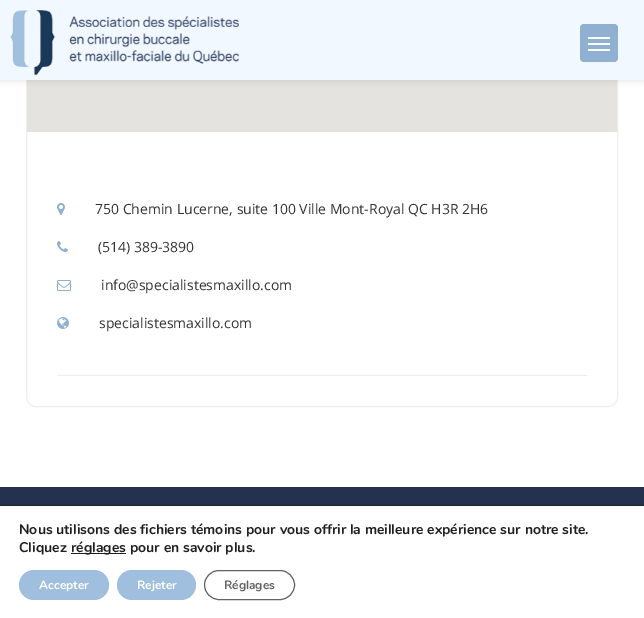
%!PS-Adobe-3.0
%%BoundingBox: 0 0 644 618
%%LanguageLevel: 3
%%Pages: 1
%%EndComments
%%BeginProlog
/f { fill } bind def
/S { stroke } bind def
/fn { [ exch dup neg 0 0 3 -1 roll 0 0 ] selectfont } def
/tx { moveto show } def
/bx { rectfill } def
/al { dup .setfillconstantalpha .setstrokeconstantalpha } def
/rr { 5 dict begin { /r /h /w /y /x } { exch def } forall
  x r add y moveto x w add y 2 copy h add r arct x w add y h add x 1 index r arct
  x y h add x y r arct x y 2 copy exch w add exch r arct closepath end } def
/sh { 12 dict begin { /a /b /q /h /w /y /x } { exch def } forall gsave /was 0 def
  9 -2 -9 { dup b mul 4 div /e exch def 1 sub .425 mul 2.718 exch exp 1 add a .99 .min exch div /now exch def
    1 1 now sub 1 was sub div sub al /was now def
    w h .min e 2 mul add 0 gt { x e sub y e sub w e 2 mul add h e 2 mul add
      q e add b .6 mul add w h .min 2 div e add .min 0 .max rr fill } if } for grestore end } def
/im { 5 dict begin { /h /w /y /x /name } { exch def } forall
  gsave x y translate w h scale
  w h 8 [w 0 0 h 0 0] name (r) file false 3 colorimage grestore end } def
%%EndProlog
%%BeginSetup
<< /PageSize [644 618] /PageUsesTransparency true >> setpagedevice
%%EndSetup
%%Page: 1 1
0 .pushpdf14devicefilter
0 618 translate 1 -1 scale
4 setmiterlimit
1 setgray
0 0 644 618 bx
0.933 setgray
26.5 -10.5 591 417 9.5 rr S
0.898 0.89 0.875 setrgbcolor
27 80 590 52 bx
0 setgray
0 0 644 80 0 4 0.12 sh
0.949 0.973 1 setrgbcolor
0 0 644 80 bx
(image0.raw) 10 10 229 65 im
0.565 0.69 0.82 setrgbcolor
580 24 38 38 4 rr f
1 setgray
588 37 22 2 1 rr f
588 43 22 2 1 rr f
588 49 22 2 1 rr f
0.933 setgray
57 375 530 1 bx
(image1.raw) 57 203 8 12 im
/OpenSans-Regular 14 fn
0.2 setgray
(750 Chemin Lucerne, suite 100 Ville Mont-Royal QC H3R 2H6) 95 214 tx
(image2.raw) 57 241 11 11 im
(\(514\) 389-3890) 98 252 tx
(image3.raw) 57 280 14 11 im
(info@specialistesmaxillo.com) 101 290 tx
(image4.raw) 57 317 12 12 im
(specialistesmaxillo.com) 99 328 tx
0.141 0.196 0.31 setrgbcolor
0 487 644 18 bx
0.125 setgray
0 505 644 1 bx
/Nunito-Bold 14 fn
(Nous utilisons des fichiers témoins pour vous offrir la meilleure expérience sur notre site.) 19 534 tx
(Cliquez) 19 552 tx
71 553 55 1 bx
(réglages pour en savoir plus.) 71 552 tx
0.627 0.745 0.867 setrgbcolor
19 570 90 30 15 rr f
/Nunito-Bold 12 fn
1 setgray
(Accepter) 39 589 tx
0.627 0.745 0.867 setrgbcolor
117 570 79 30 15 rr f
1 setgray
(Rejeter) 137 589 tx
0.388 setgray
204.5 570.5 90 29 14.5 rr S
(Réglages) 224 589 tx
.poppdf14devicefilter showpage
%%EOF
